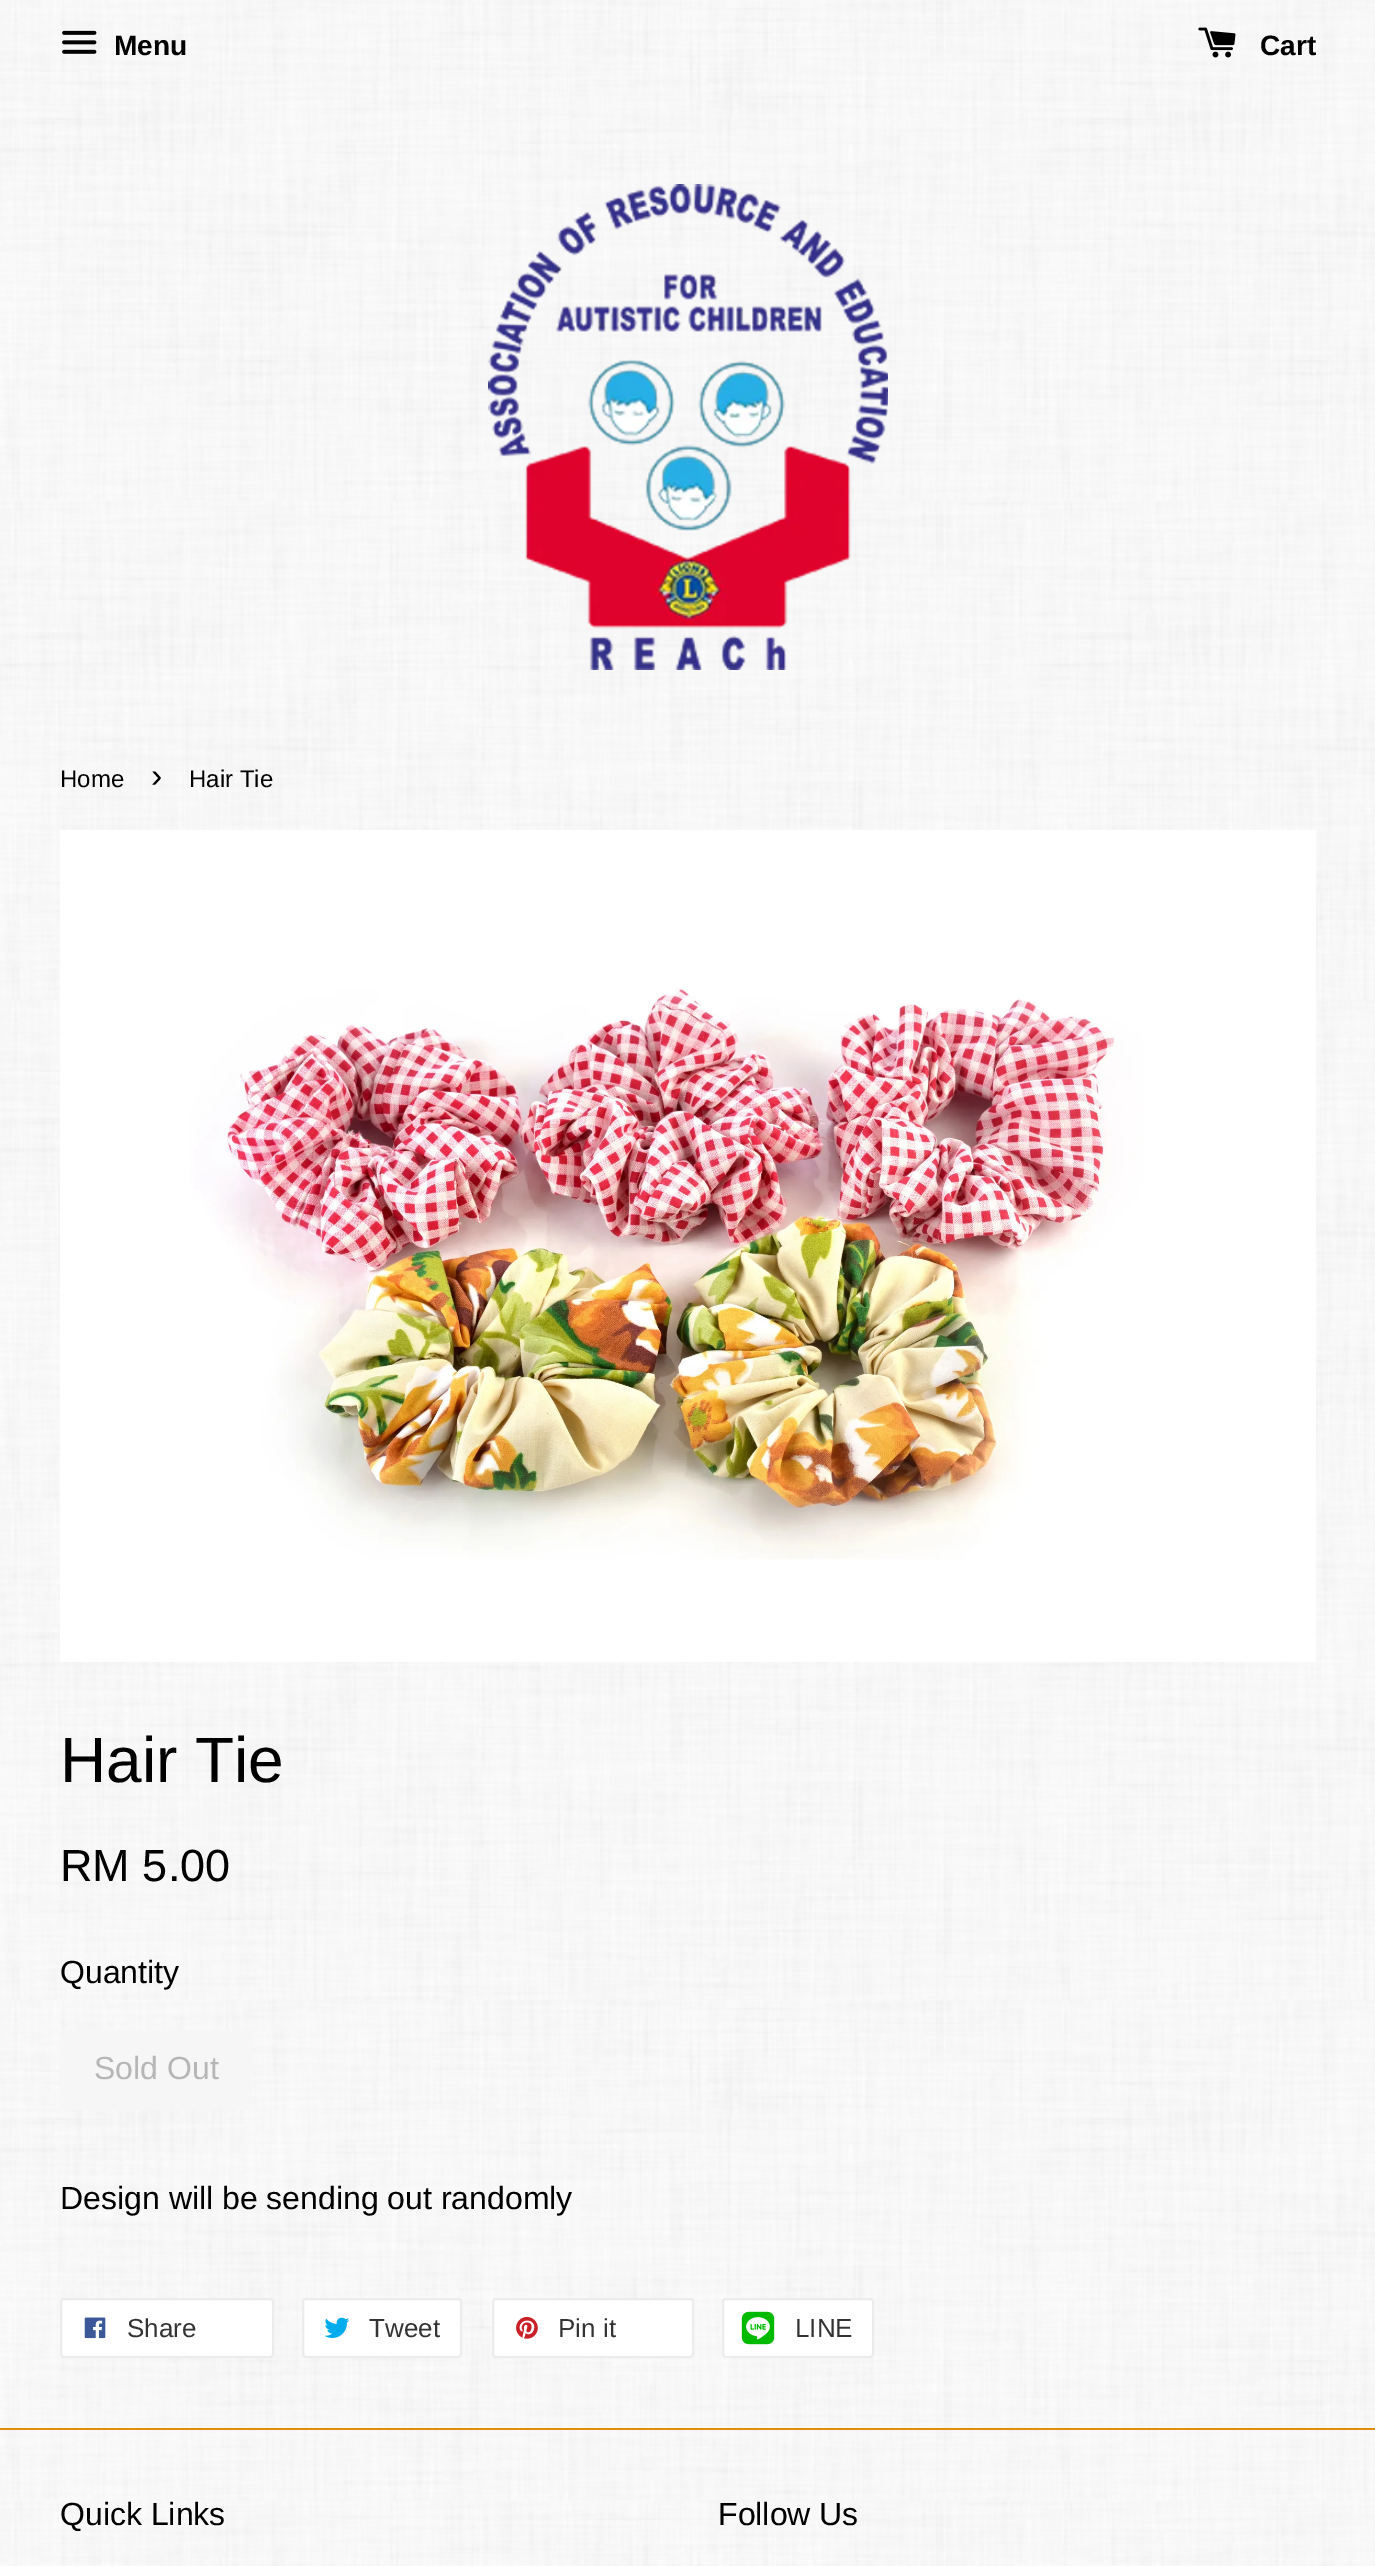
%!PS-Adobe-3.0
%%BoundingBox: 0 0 1375 2566
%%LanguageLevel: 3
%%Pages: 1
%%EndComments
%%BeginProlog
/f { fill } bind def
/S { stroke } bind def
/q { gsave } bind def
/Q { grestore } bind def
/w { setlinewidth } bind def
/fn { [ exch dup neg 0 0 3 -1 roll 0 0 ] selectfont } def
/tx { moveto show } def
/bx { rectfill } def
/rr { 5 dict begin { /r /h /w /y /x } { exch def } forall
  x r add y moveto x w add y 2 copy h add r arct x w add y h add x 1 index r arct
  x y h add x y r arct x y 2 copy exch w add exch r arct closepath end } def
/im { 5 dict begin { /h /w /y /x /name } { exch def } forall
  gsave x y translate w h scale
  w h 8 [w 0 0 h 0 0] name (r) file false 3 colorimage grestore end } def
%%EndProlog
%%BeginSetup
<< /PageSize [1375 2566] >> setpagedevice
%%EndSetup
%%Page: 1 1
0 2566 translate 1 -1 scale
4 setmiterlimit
1 setgray
0 0 1375 2566 bx
(image0.raw) 0 0 1375 2566 im
(image1.raw) 62 30 35 24 im
/LiberationSans-Bold 28 fn
0 setgray
(Menu) 114 55 tx
(image2.raw) 1198 27 38 31 im
(Cart) 1260 55 tx
(image3.raw) 488 184 400 486 im
/LiberationSans-Regular 24 fn
(Home) 60 787 tx
/LiberationSans-Regular 34 fn
(›) 151 787 tx
/LiberationSans-Regular 24 fn
(Hair Tie) 189 787 tx
(image4.raw) 60 830 1256 832 im
/LiberationSans-Regular 64 fn
(Hair Tie) 60 1782 tx
/LiberationSans-Regular 45 fn
(RM 5.00) 60 1881 tx
/LiberationSans-Regular 32 fn
(Quantity) 60 1983 tx
0.965 setgray
60 2030 192 80 4 rr f
0.714 setgray
(Sold Out) 94 2079 tx
0 setgray
(Design will be sending out randomly) 60 2209 tx
1 setgray
61 2299 212 58 3 rr q f Q
0.925 setgray
2 w
S
(image5.raw) 84 2317 22 22 im
/LiberationSans-Regular 26 fn
0.2 setgray
(Share) 127 2337 tx
1 setgray
303 2299 158 58 3 rr q f Q
0.925 setgray
S
(image6.raw) 324 2317 26 21 im
0.2 setgray
(Tweet) 369 2337 tx
1 setgray
493 2299 200 58 3 rr q f Q
0.925 setgray
S
(image7.raw) 516 2316 22 23 im
0.2 setgray
(Pin it) 558 2337 tx
1 setgray
723 2299 150 58 3 rr q f Q
0.925 setgray
S
(image8.raw) 741 2311 34 34 im
0.2 setgray
(LINE) 795 2337 tx
0.878 0.561 0.051 setrgbcolor
0 2428 1375 2 bx
/LiberationSans-Regular 32 fn
0 setgray
(Quick Links) 60 2525 tx
(Follow Us) 718 2525 tx
showpage
%%EOF
